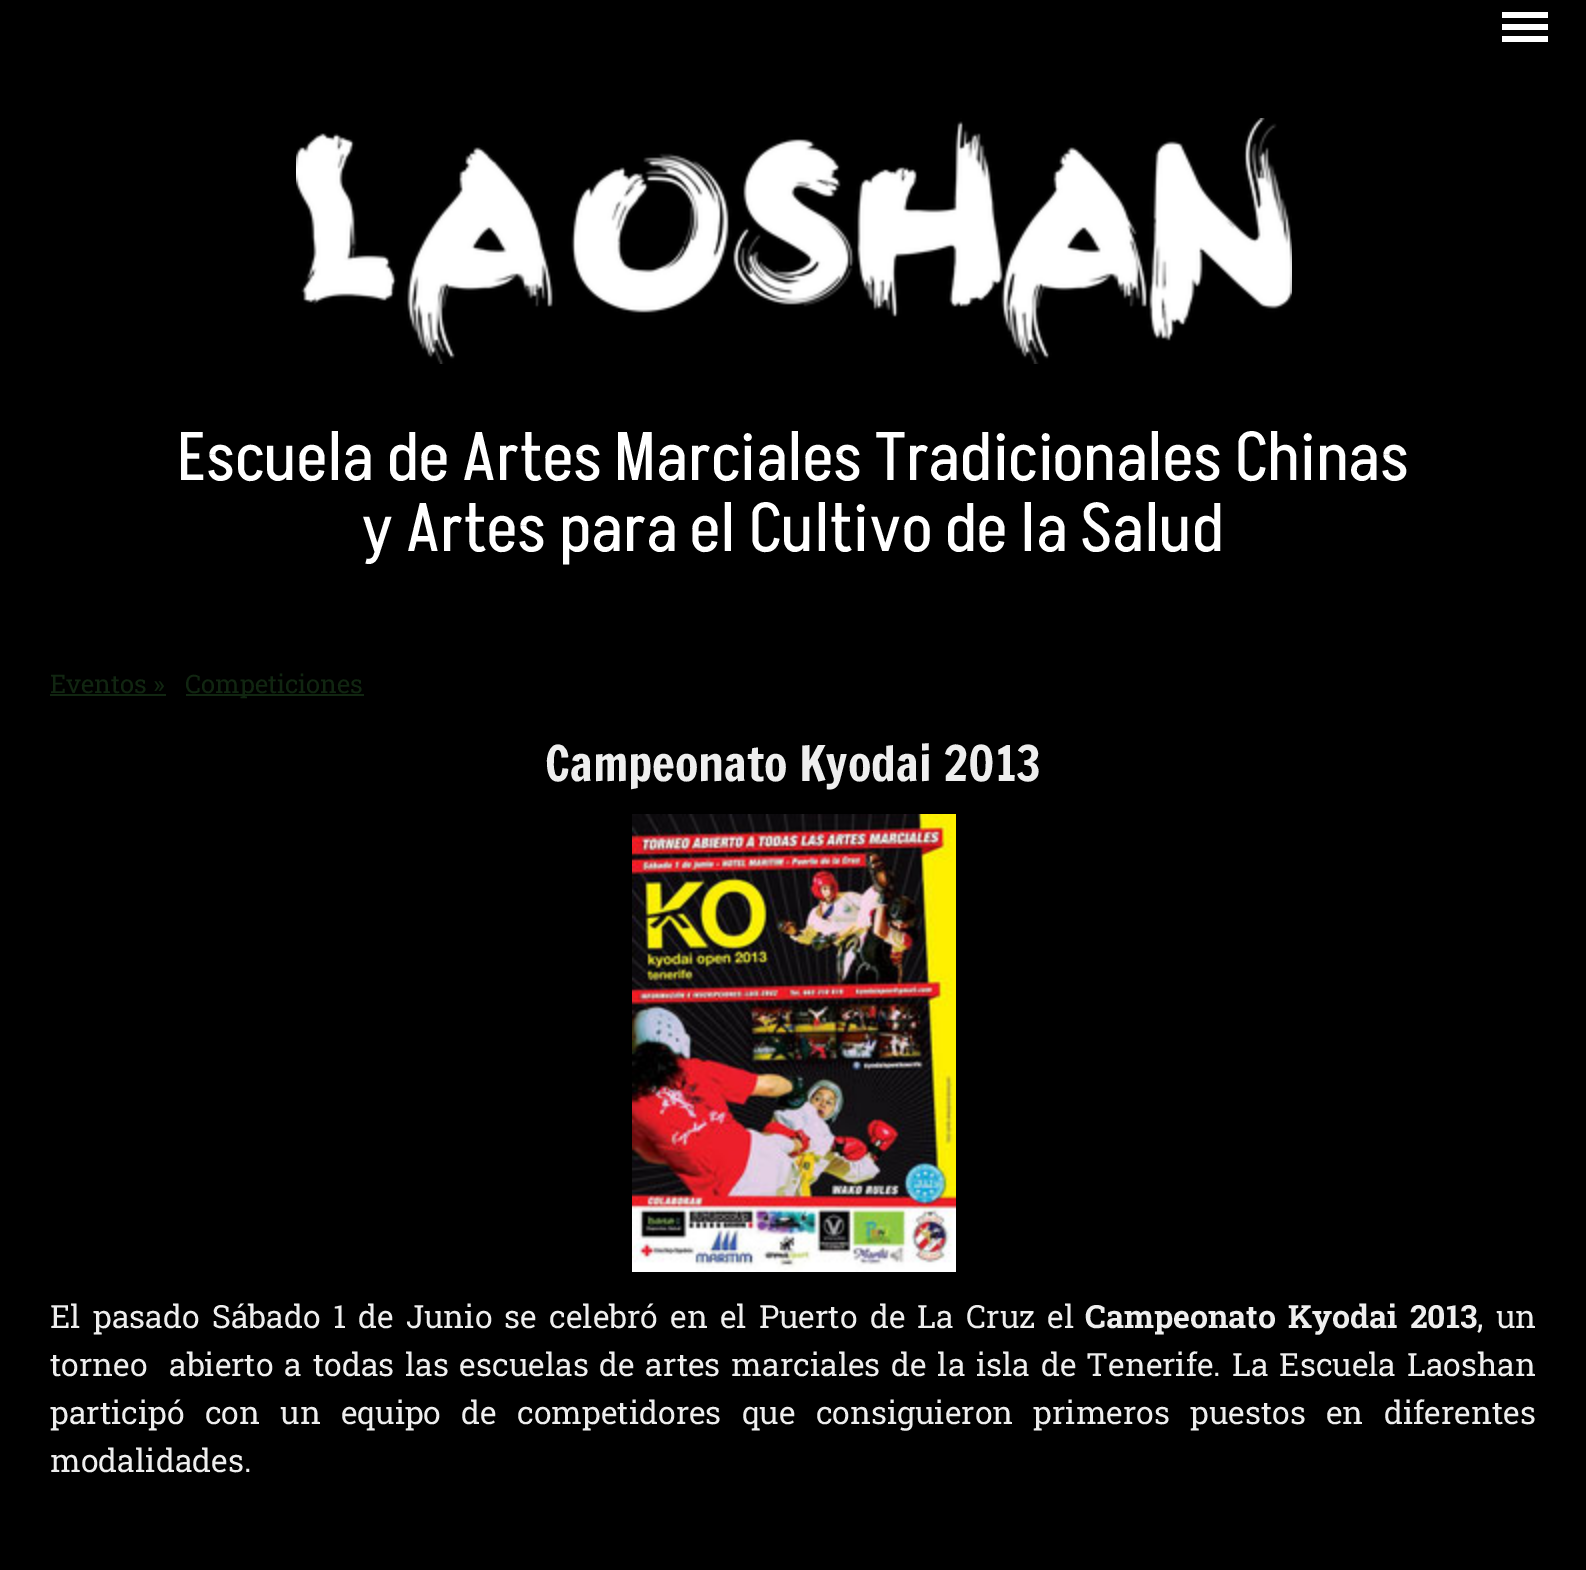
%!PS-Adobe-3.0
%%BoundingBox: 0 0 1586 1570
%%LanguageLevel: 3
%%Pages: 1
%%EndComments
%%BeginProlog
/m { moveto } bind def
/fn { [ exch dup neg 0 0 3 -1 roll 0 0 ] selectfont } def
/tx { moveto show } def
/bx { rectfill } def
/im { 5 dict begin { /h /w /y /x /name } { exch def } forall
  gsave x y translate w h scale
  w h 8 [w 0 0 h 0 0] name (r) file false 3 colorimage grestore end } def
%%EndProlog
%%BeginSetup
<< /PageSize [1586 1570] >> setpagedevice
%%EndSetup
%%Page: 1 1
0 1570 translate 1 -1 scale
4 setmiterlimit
0 setgray
0 0 1586 1570 bx
1 setgray
1502 24 46 6 bx
1502 12 46 6 bx
1502 36 46 6 bx
(image0.raw) 296 118 996 246 im
/Akshar-Light 68 fn
(Escuela de Artes Marciales Tradicionales Chinas) 177 480 tx
(y Artes para el Cultivo de la Salud) 361 551 tx
/RobotoSlab-Regular 25.5 fn
0.067 0.149 0.067 setrgbcolor
(Eventos ») 50 693 tx
50 694 116 2 bx
186 694 178 2 bx
(Competiciones) 185 693 tx
/FrancoisOne-Regular 48 fn
0.933 setgray
(Campeonato Kyodai 2013) 545 781 tx
(image1.raw) 632 814 324 458 im
/RobotoSlab-Regular 32 fn
50 1328 m 4.25 0 32 (El pasado Sábado 1 de Junio se celebró en el Puerto de La Cruz el) widthshow
/RobotoSlab-Bold 32 fn
1085 1328 m 4.25 0 32 (Campeonato Kyodai 2013) widthshow
/RobotoSlab-Regular 32 fn
1477 1328 m 4.25 0 32 (, un) widthshow
50 1376 m 2.75 0 32 (torneo  abierto a todas las escuelas de artes marciales de la isla de) widthshow
1086 1376 m 2.75 0 32 (Tenerife. La Escuela Laoshan) widthshow
50 1424 m 12.25 0 32 (participó con un equipo de competidores que consiguieron primeros puestos en diferentes) widthshow
(modalidades.) 50 1472 tx
showpage
%%EOF
